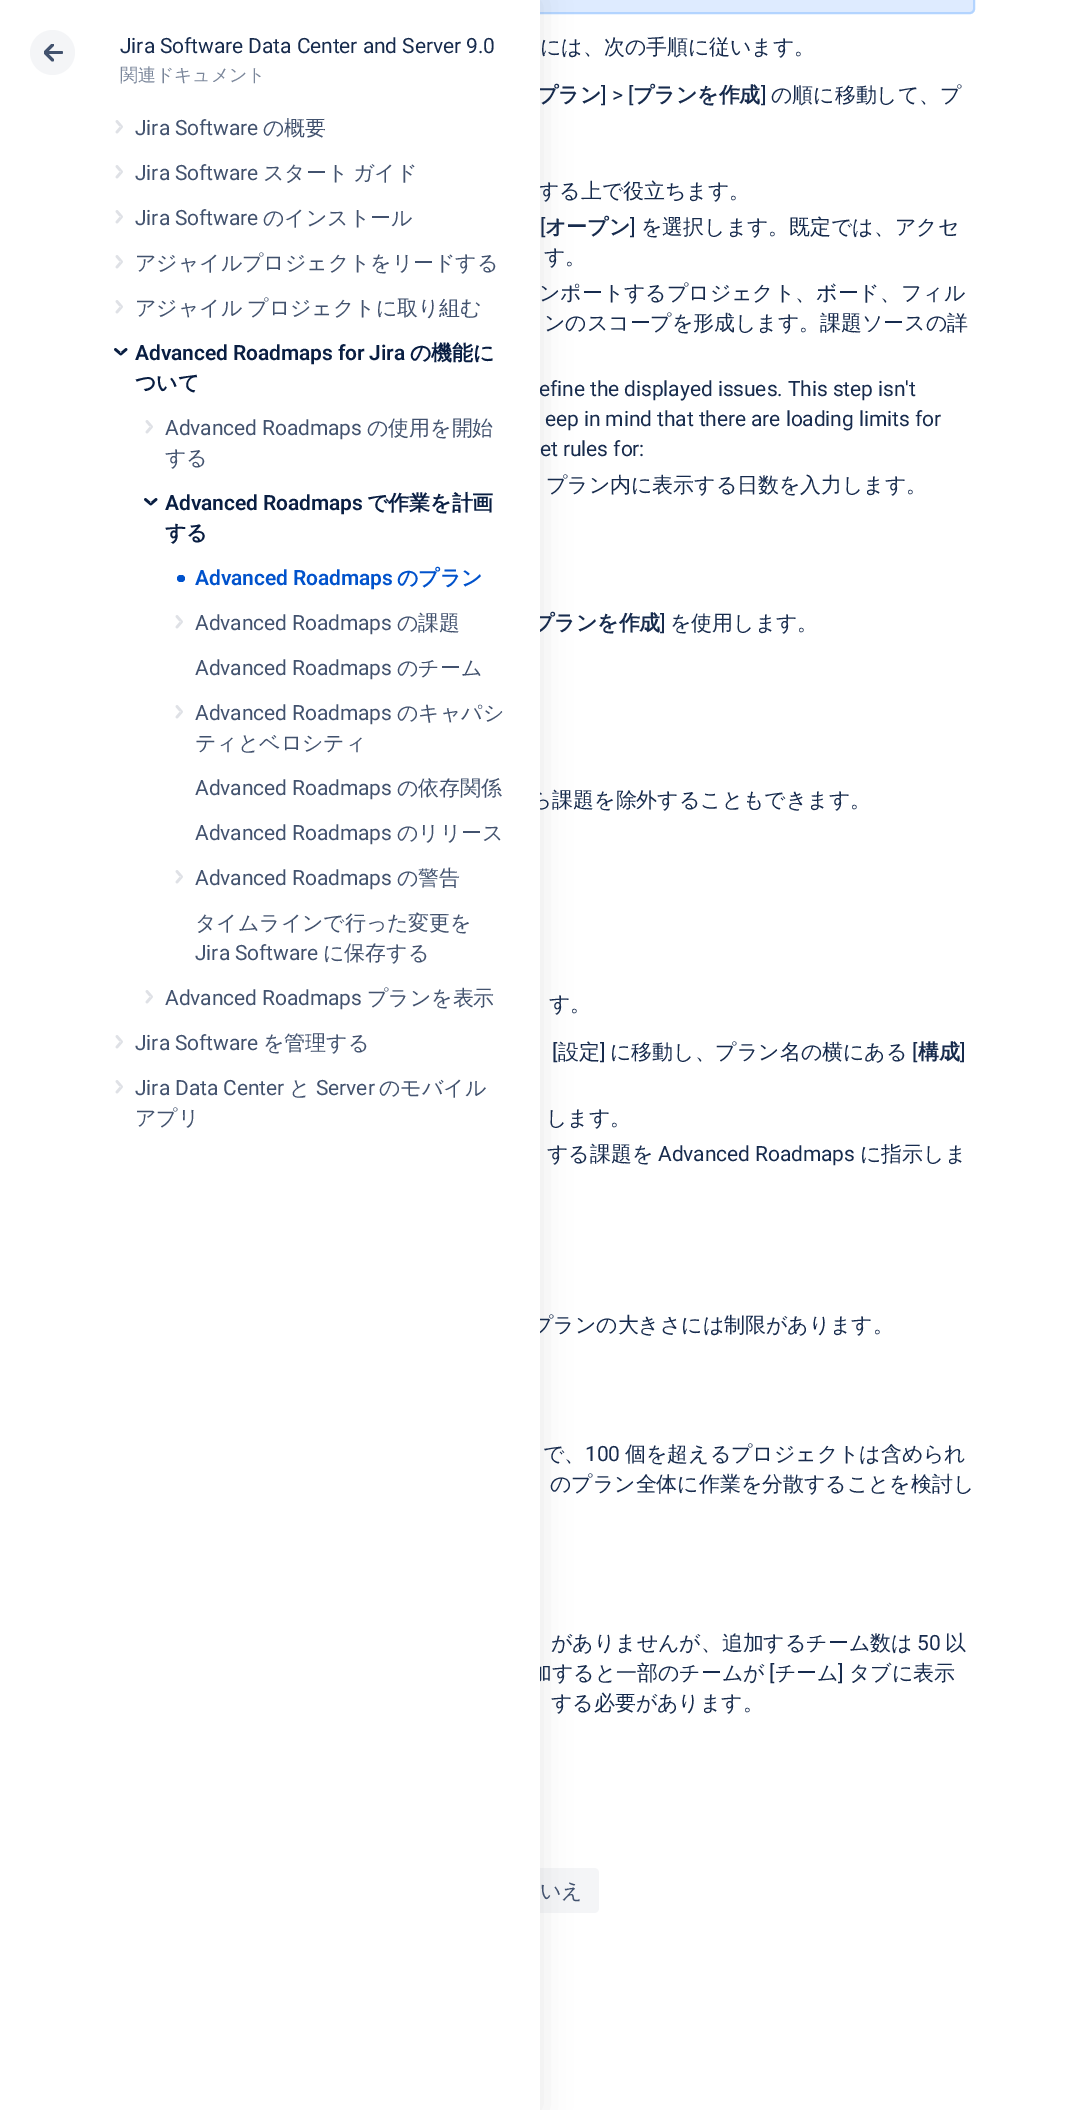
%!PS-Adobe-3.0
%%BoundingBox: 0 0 1080 2110
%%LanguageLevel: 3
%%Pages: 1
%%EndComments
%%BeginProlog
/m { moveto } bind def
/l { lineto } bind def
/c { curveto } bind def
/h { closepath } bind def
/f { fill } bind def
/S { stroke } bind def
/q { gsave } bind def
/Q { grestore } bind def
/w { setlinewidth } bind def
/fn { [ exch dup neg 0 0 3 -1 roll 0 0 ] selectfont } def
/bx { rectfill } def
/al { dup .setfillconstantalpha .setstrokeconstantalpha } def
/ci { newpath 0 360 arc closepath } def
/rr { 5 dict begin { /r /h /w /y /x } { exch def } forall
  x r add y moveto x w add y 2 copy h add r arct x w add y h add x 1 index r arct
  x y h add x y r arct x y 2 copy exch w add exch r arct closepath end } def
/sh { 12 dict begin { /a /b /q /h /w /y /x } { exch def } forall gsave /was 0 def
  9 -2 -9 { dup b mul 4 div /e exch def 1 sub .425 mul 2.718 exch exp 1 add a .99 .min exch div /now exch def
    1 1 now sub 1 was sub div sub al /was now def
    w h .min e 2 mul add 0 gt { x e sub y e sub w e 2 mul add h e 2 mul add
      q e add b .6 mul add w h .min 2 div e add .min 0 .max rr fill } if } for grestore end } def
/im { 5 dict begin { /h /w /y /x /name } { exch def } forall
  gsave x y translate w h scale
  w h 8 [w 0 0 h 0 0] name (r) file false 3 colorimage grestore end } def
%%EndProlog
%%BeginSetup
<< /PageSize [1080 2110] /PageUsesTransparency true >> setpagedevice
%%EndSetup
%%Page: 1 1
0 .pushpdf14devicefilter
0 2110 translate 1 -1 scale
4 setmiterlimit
1 setgray
0 0 1080 2110 bx
0.871 0.922 1 setrgbcolor
106 -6 868 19 4 rr q f Q
0.702 0.831 1 setrgbcolor
2 w
S
0.957 0.961 0.969 setrgbcolor
504 1868 m 594 1868 l 597 1868 599 1870 599 1873 c 599 1908 l 599 1911 597 1913 594 1913 c 504 1913 l h f
0.086 setgray
0 0 540 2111 0 15 0.1 sh
/WenQuanYiZenHei-Bold 21 fn
0.09 0.169 0.302 setrgbcolor
537 102 m -0.1 0 (プラン) ashow
/WenQuanYiZenHei-Medium 21 fn
538 198 m -0.1 0 (する上で役立ちます。) ashow
/Roboto-Regular 21 fn
539 396 m -0.1 0 (efine the displayed issues. This step isn't) ashow
/WenQuanYiZenHei-Bold 21 fn
533 630 m -0.1 0 (プランを作成) ashow
/WenQuanYiZenHei-Medium 21 fn
531 807 m -0.1 0 (ら課題を除外することもできます。) ashow
532 1332 m -0.1 0 (プランの大きさには制限があります。) ashow
531 1680 m -0.1 0 (加すると一部のチームが) ashow
1 setgray
0 0 540 2110 bx
0.957 0.961 0.969 setrgbcolor
52.5 52.5 22.5 ci f
0.259 0.322 0.431 setrgbcolor
45 51 18 3 1.5 rr f
q
44 44 19 18 rectclip
3 w
1 setlinecap
1 setlinejoin
52.5 60 m 45 52.5 l 52.5 45 l S
Q
/Roboto-Regular 21 fn
0.09 0.169 0.302 setrgbcolor
120 53 m -0.1 0 (Jira Software Data Center and Server 9.0) ashow
/WenQuanYiZenHei-Medium 18 fn
0.478 0.525 0.604 setrgbcolor
120 81 m -0.1 0 (関連ドキュメント) ashow
(image0.raw) 115 120 8 14 im
/Roboto-Regular 21 fn
0.259 0.322 0.431 setrgbcolor
135 135 m -0.1 0 (Jira Software) ashow
/WenQuanYiZenHei-Medium 21 fn
263 135 m -0.1 0 (の概要) ashow
(image0.raw) 115 165 8 14 im
/Roboto-Regular 21 fn
135 180 m -0.1 0 (Jira Software) ashow
/WenQuanYiZenHei-Medium 21 fn
263 180 m -0.1 0 (スタート) ashow
353 180 m -0.1 0 (ガイド) ashow
(image0.raw) 115 210 8 14 im
/Roboto-Regular 21 fn
135 225 m -0.1 0 (Jira Software) ashow
/WenQuanYiZenHei-Medium 21 fn
263 225 m -0.1 0 (のインストール) ashow
(image0.raw) 115 255 8 14 im
135 270 m -0.1 0 (アジャイルプロジェクトをリードする) ashow
(image0.raw) 115 300 8 14 im
135 315 m -1 0 32 -0.1 0 (アジャイル プロジェクトに取り組む) awidthshow
(image1.raw) 114 348 14 8 im
/Roboto-SemiBold 21 fn
0.035 0.118 0.259 setrgbcolor
135 360 m -0.1 0 (Advanced Roadmaps for Jira) ashow
/WenQuanYiZenHei-Bold 21 fn
410 360 m -0.1 0 (の機能に) ashow
135 390 m -0.1 0 (ついて) ashow
(image0.raw) 145 420 8 14 im
/Roboto-Regular 21 fn
0.259 0.322 0.431 setrgbcolor
165 435 m -0.1 0 (Advanced Roadmaps) ashow
/WenQuanYiZenHei-Medium 21 fn
367 435 m -0.1 0 (の使用を開始) ashow
165 465 m -0.1 0 (する) ashow
(image1.raw) 144 498 14 8 im
/Roboto-SemiBold 21 fn
0.035 0.118 0.259 setrgbcolor
165 510 m -0.1 0 (Advanced Roadmaps) ashow
/WenQuanYiZenHei-Bold 21 fn
367 510 m -0.1 0 (で作業を計画) ashow
165 540 m -0.1 0 (する) ashow
0 0.322 0.8 setrgbcolor
177 575 8 7 3.5 rr f
/Roboto-SemiBold 21 fn
195 585 m -0.1 0 (Advanced Roadmaps) ashow
/WenQuanYiZenHei-Bold 21 fn
397 585 m -0.1 0 (のプラン) ashow
(image0.raw) 175 615 8 14 im
/Roboto-Regular 21 fn
0.259 0.322 0.431 setrgbcolor
195 630 m -0.1 0 (Advanced Roadmaps) ashow
/WenQuanYiZenHei-Medium 21 fn
397 630 m -0.1 0 (の課題) ashow
/Roboto-Regular 21 fn
195 675 m -0.1 0 (Advanced Roadmaps) ashow
/WenQuanYiZenHei-Medium 21 fn
397 675 m -0.1 0 (のチーム) ashow
(image0.raw) 175 705 8 14 im
/Roboto-Regular 21 fn
195 720 m -0.1 0 (Advanced Roadmaps) ashow
/WenQuanYiZenHei-Medium 21 fn
397 720 m -0.1 0 (のキャパシ) ashow
195 750 m -0.1 0 (ティとベロシティ) ashow
/Roboto-Regular 21 fn
195 795 m -0.1 0 (Advanced Roadmaps) ashow
/WenQuanYiZenHei-Medium 21 fn
397 795 m -0.1 0 (の依存関係) ashow
/Roboto-Regular 21 fn
195 840 m -0.1 0 (Advanced Roadmaps) ashow
/WenQuanYiZenHei-Medium 21 fn
397 840 m -0.1 0 (のリリース) ashow
(image0.raw) 175 870 8 14 im
/Roboto-Regular 21 fn
195 885 m -0.1 0 (Advanced Roadmaps) ashow
/WenQuanYiZenHei-Medium 21 fn
397 885 m -0.1 0 (の警告) ashow
195 930 m -0.1 0 (タイムラインで行った変更を) ashow
/Roboto-Regular 21 fn
195 960 m -0.1 0 (Jira Software) ashow
/WenQuanYiZenHei-Medium 21 fn
323 960 m -0.1 0 (に保存する) ashow
(image0.raw) 145 990 8 14 im
/Roboto-Regular 21 fn
165 1005 m -0.1 0 (Advanced Roadmaps) ashow
/WenQuanYiZenHei-Medium 21 fn
367 1005 m -0.1 0 (プランを表示) ashow
(image0.raw) 115 1035 8 14 im
/Roboto-Regular 21 fn
135 1050 m -0.1 0 (Jira Software) ashow
/WenQuanYiZenHei-Medium 21 fn
263 1050 m -0.1 0 (を管理する) ashow
(image0.raw) 115 1080 8 14 im
/Roboto-Regular 21 fn
135 1095 m -0.1 0 (Jira Data Center) ashow
/WenQuanYiZenHei-Medium 21 fn
289 1095 m -0.1 0 (と) ashow
/Roboto-Regular 21 fn
316 1095 m -0.1 0 (Server) ashow
/WenQuanYiZenHei-Medium 21 fn
379 1095 m -0.1 0 (のモバイル) ashow
135 1125 m -0.1 0 (アプリ) ashow
0.09 0.169 0.302 setrgbcolor
540 54 m -0.1 0 (には、次の手順に従います。) ashow
/Roboto-Regular 21 fn
601 102 m -0.1 0 (] > [) ashow
/WenQuanYiZenHei-Bold 21 fn
633 102 m -0.1 0 (プランを作成) ashow
/Roboto-Regular 21 fn
761 102 m -0.1 0 (]) ashow
/WenQuanYiZenHei-Medium 21 fn
771 102 m -0.1 0 (の順に移動して、プ) ashow
/Roboto-Regular 21 fn
540 234 m -0.1 0 ([) ashow
/WenQuanYiZenHei-Bold 21 fn
545 234 m -0.1 0 (オープン) ashow
/Roboto-Regular 21 fn
630 234 m -0.1 0 (]) ashow
/WenQuanYiZenHei-Medium 21 fn
641 234 m -0.1 0 (を選択します。既定では、アクセ) ashow
544 264 m -0.1 0 (す。) ashow
539 300 m -0.1 0 (ンポートするプロジェクト、ボード、フィル) ashow
544 330 m -0.1 0 (ンのスコープを形成します。課題ソースの詳) ashow
/Roboto-Regular 21 fn
545 426 m -0.1 0 (eep in mind that there are loading limits for) ashow
540 456 m -0.1 0 (et rules for:) ashow
/WenQuanYiZenHei-Medium 21 fn
546 492 m -0.1 0 (プラン内に表示する日数を入力します。) ashow
/Roboto-Regular 21 fn
660 630 m -0.1 0 (]) ashow
/WenQuanYiZenHei-Medium 21 fn
670 630 m -0.1 0 (を使用します。) ashow
549 1011 m -0.1 0 (す。) ashow
/Roboto-Regular 21 fn
552 1059 m -0.1 0 ([) ashow
/WenQuanYiZenHei-Medium 21 fn
558 1059 m -0.1 0 (設定) ashow
/Roboto-Regular 21 fn
600 1059 m -0.1 0 (]) ashow
/WenQuanYiZenHei-Medium 21 fn
610 1059 m -0.1 0 (に移動し、プラン名の横にある) ashow
/Roboto-Regular 21 fn
912 1059 m -0.1 0 ([) ashow
/WenQuanYiZenHei-Bold 21 fn
918 1059 m -0.1 0 (構成) ashow
/Roboto-Regular 21 fn
960 1059 m -0.1 0 (]) ashow
/WenQuanYiZenHei-Medium 21 fn
546 1125 m -0.1 0 (します。) ashow
547 1161 m -0.1 0 (する課題を) ashow
/Roboto-Regular 21 fn
658 1161 m -0.1 0 (Advanced Roadmaps) ashow
/WenQuanYiZenHei-Medium 21 fn
860 1161 m -0.1 0 (に指示しま) ashow
543 1461 m -0.1 0 (で、) ashow
/Roboto-Regular 21 fn
585 1461 m -0.1 0 (100) ashow
/WenQuanYiZenHei-Medium 21 fn
625 1461 m -0.1 0 (個を超えるプロジェクトは含められ) ashow
550 1491 m -0.1 0 (のプラン全体に作業を分散することを検討し) ashow
551 1650 m -0.1 0 (がありませんが、追加するチーム数は) ashow
/Roboto-Regular 21 fn
917 1650 m -0.1 0 (50) ashow
/WenQuanYiZenHei-Medium 21 fn
945 1650 m -0.1 0 (以) ashow
/Roboto-Regular 21 fn
769 1680 m -0.1 0 ([) ashow
/WenQuanYiZenHei-Medium 21 fn
775 1680 m -0.1 0 (チーム) ashow
/Roboto-Regular 21 fn
838 1680 m -0.1 0 (]) ashow
/WenQuanYiZenHei-Medium 21 fn
849 1680 m -0.1 0 (タブに表示) ashow
551 1710 m -0.1 0 (する必要があります。) ashow
0.259 0.322 0.431 setrgbcolor
540 1898 m -0.1 0 (いえ) ashow
.poppdf14devicefilter showpage
%%EOF
